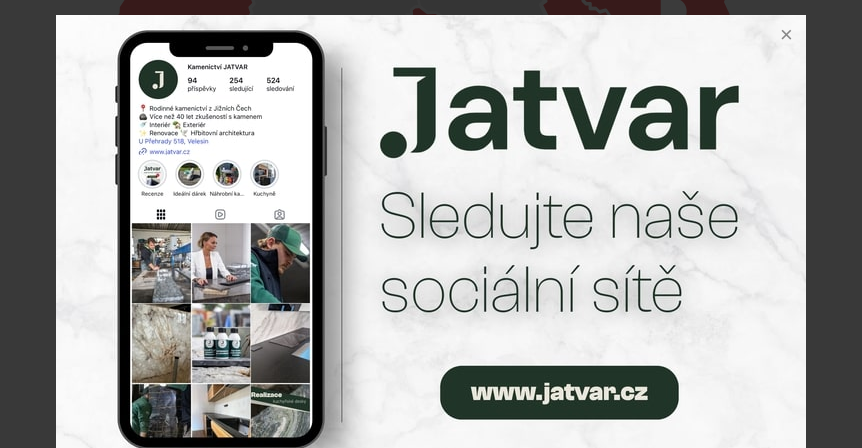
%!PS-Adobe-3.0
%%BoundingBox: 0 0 862 448
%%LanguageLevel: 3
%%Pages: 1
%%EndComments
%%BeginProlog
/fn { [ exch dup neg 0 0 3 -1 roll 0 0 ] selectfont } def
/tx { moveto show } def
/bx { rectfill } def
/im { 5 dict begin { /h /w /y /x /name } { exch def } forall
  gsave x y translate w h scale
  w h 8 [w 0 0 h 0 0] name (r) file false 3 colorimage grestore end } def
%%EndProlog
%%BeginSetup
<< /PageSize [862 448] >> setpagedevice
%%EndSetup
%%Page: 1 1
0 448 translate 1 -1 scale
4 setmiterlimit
0.224 setgray
0 0 862 448 bx
(image0.raw) 118 0 612 15 im
(image1.raw) 56 15 750 433 im
/LiberationSans-Regular 22 fn
0.533 setgray
(×) 780 42 tx
showpage
%%EOF
